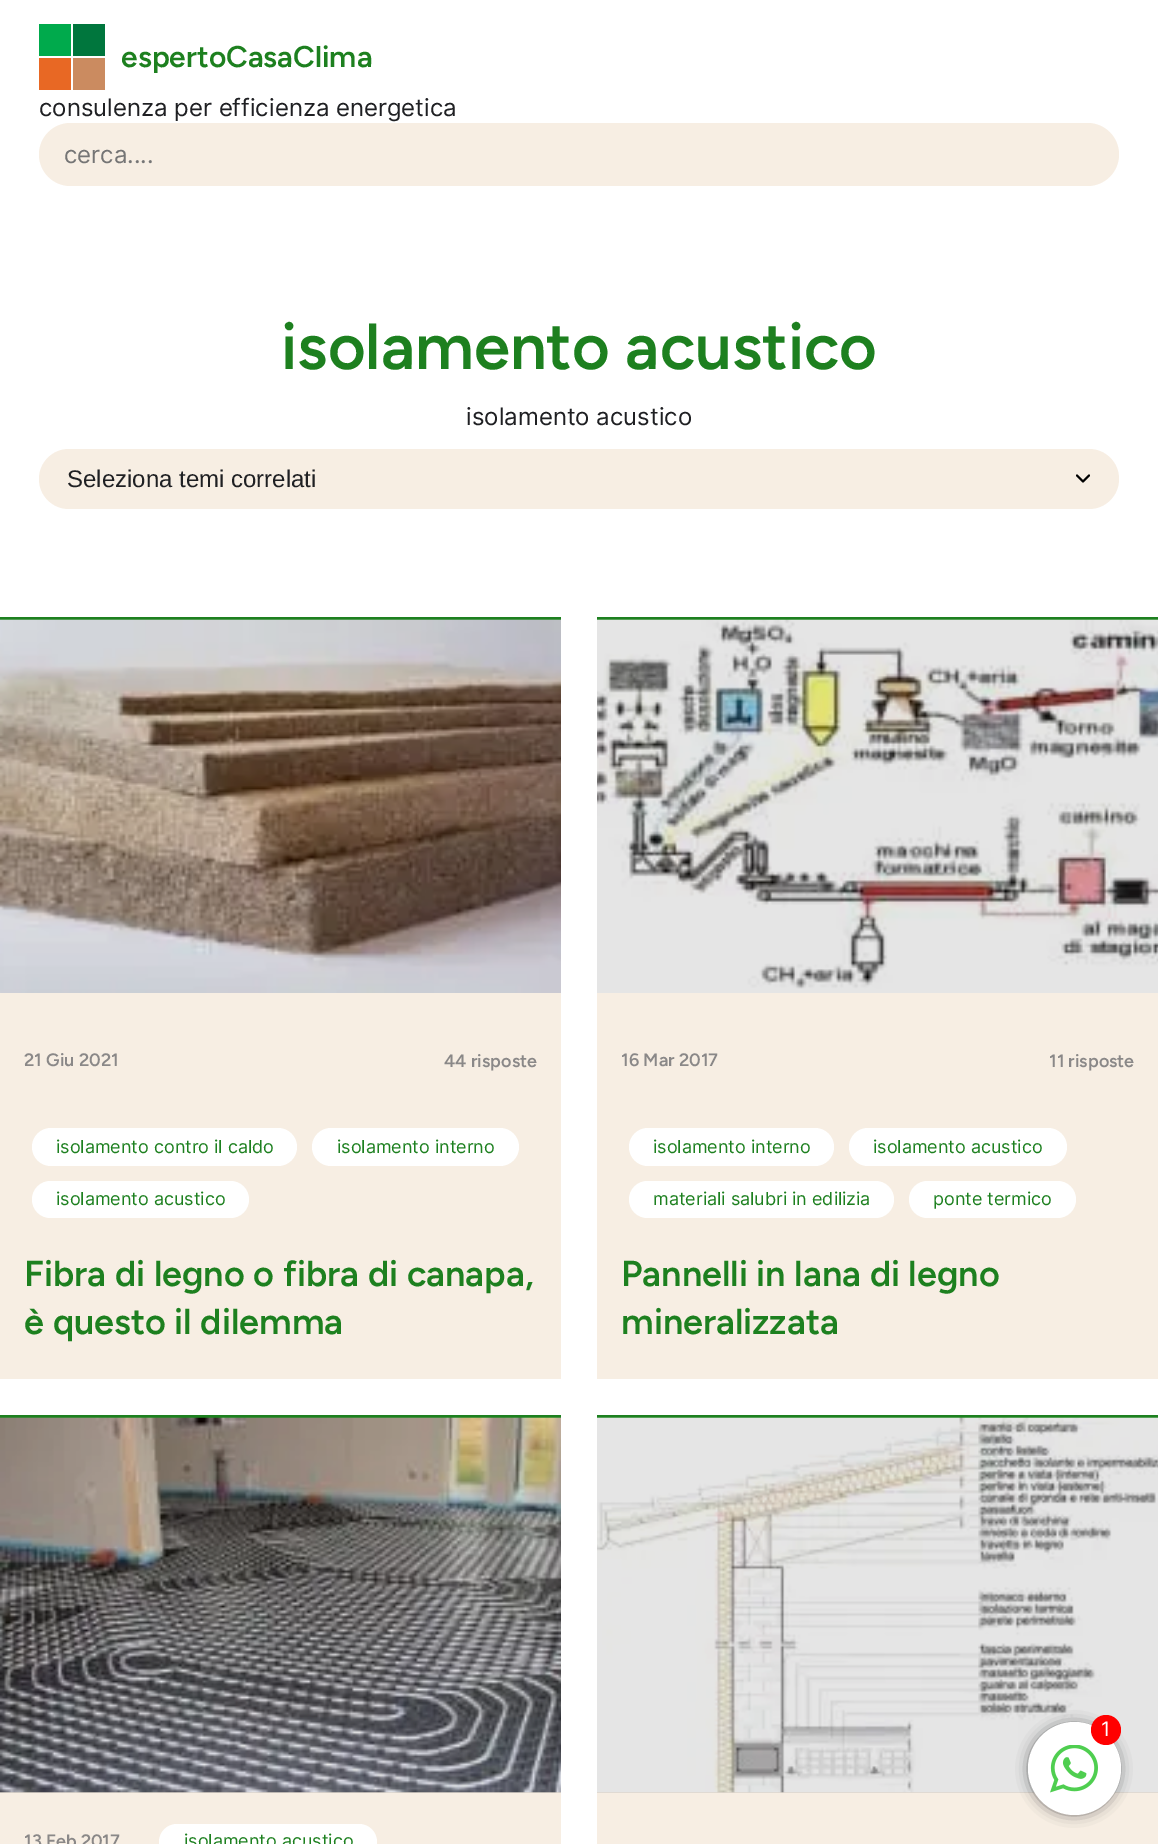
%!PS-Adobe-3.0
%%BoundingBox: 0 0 1158 1844
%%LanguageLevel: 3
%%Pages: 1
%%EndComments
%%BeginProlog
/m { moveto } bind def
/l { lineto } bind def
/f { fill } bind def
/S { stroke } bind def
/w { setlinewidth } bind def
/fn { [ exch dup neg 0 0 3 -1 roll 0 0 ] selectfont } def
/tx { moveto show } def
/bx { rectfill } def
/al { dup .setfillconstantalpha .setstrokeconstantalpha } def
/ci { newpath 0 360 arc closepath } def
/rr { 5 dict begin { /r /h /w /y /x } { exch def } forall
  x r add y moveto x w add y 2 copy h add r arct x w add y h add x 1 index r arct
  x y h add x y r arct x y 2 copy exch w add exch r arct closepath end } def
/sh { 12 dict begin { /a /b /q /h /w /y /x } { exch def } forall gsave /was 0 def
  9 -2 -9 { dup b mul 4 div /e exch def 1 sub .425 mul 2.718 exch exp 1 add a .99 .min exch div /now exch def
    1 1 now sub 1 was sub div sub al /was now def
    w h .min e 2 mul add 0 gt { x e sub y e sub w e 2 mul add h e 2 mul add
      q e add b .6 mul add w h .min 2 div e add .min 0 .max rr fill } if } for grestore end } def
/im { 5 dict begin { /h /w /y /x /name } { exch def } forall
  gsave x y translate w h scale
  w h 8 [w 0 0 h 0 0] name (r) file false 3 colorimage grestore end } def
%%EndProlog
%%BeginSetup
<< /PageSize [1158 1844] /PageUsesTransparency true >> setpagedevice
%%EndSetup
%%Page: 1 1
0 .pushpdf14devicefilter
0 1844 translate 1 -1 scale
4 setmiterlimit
1 setgray
0 0 1158 1844 bx
0 0.667 0.298 setrgbcolor
39 24 32 32 bx
0 0.463 0.239 setrgbcolor
73 24 32 32 bx
0.91 0.408 0.141 setrgbcolor
39 58 32 32 bx
0.796 0.545 0.376 setrgbcolor
73 58 32 32 bx
/Figtree-SemiBold 30 fn
0.114 0.502 0.122 setrgbcolor
(espertoCasaClima) 121 67 tx
/Inter-Regular 24 fn
0.122 0.125 0.137 setrgbcolor
(consulenza per efficienza energetica) 39 116 tx
0.969 0.933 0.89 setrgbcolor
39 123 1080 63 31.5 rr f
0.459 setgray
(cerca....) 64 163 tx
/Figtree-SemiBold 65.1 fn
0.114 0.502 0.122 setrgbcolor
(isolamento acustico) 281 369 tx
/Inter-Regular 24 fn
0.122 0.125 0.137 setrgbcolor
(isolamento acustico) 466 425 tx
0.969 0.933 0.89 setrgbcolor
39 449 1080 60 30 rr f
0 setgray
2 w
1 setlinecap
1 setlinejoin
1077 475.5 m 1083 481.5 l 1089 475.5 l S
/LiberationSans-Regular 24 fn
0.122 0.125 0.137 setrgbcolor
(Seleziona temi correlati) 67 487 tx
0.969 0.933 0.89 setrgbcolor
0 993 561 386 bx
0.114 0.502 0.122 setrgbcolor
0 617 561 3 bx
(image0.raw) 0 619 561 374 im
/Figtree-SemiBold 18 fn
0.541 0.533 0.533 setrgbcolor
(21 Giu 2021) 24 1066 tx
(44 risposte) 444 1067 tx
1 setgray
32 1128 265 38 19 rr f
/Inter-Regular 18 fn
0.114 0.502 0.122 setrgbcolor
(isolamento contro il caldo) 56 1153 tx
1 setgray
312 1128 207 38 19 rr f
0.114 0.502 0.122 setrgbcolor
(isolamento interno) 337 1153 tx
1 setgray
32 1181 217 37 18.5 rr f
0.114 0.502 0.122 setrgbcolor
(isolamento acustico) 56 1205 tx
/Figtree-SemiBold 36 fn
(Fibra di legno o fibra di canapa,) 24 1286 tx
(è questo il dilemma) 24 1334 tx
0.969 0.933 0.89 setrgbcolor
597 993 561 386 bx
0.114 0.502 0.122 setrgbcolor
597 617 561 3 bx
(image1.raw) 597 619 561 374 im
/Figtree-SemiBold 18 fn
0.541 0.533 0.533 setrgbcolor
(16 Mar 2017) 621 1066 tx
(11 risposte) 1049 1067 tx
1 setgray
629 1128 205 38 19 rr f
/Inter-Regular 18 fn
0.114 0.502 0.122 setrgbcolor
(isolamento interno) 653 1153 tx
1 setgray
849 1128 218 38 19 rr f
0.114 0.502 0.122 setrgbcolor
(isolamento acustico) 873 1153 tx
1 setgray
629 1181 265 37 18.5 rr f
0.114 0.502 0.122 setrgbcolor
(materiali salubri in edilizia) 653 1205 tx
1 setgray
909 1181 167 37 18.5 rr f
0.114 0.502 0.122 setrgbcolor
(ponte termico) 933 1205 tx
/Figtree-SemiBold 36 fn
(Pannelli in lana di legno) 621 1286 tx
(mineralizzata) 621 1334 tx
0.969 0.933 0.89 setrgbcolor
0 1793 561 51 bx
0.871 0.839 0.8 setrgbcolor
0 1792 561 1 bx
0.114 0.502 0.122 setrgbcolor
0 1415 561 3 bx
(image2.raw) 0 1417 561 376 im
/Figtree-SemiBold 18 fn
0.541 0.533 0.533 setrgbcolor
(13 Feb 2017) 24 1847 tx
1 setgray
159 1824 218 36 18 rr f
/Inter-Regular 18 fn
0.114 0.502 0.122 setrgbcolor
(isolamento acustico) 184 1847 tx
0.969 0.933 0.89 setrgbcolor
597 1793 561 51 bx
0.871 0.839 0.8 setrgbcolor
597 1792 561 1 bx
0.114 0.502 0.122 setrgbcolor
597 1415 561 3 bx
(image3.raw) 597 1417 561 376 im
0.122 0.125 0.137 setrgbcolor
1032 1727 84 84 42 7.5 1 sh
1 setgray
1074.5 1768.5 46.5 ci f
1 0 0 setrgbcolor
1106 1730 15 ci f
/Inter-Regular 20 fn
1 setgray
(1) 1101 1736 tx
(image4.raw) 1050 1745 48 48 im
.poppdf14devicefilter showpage
%%EOF
